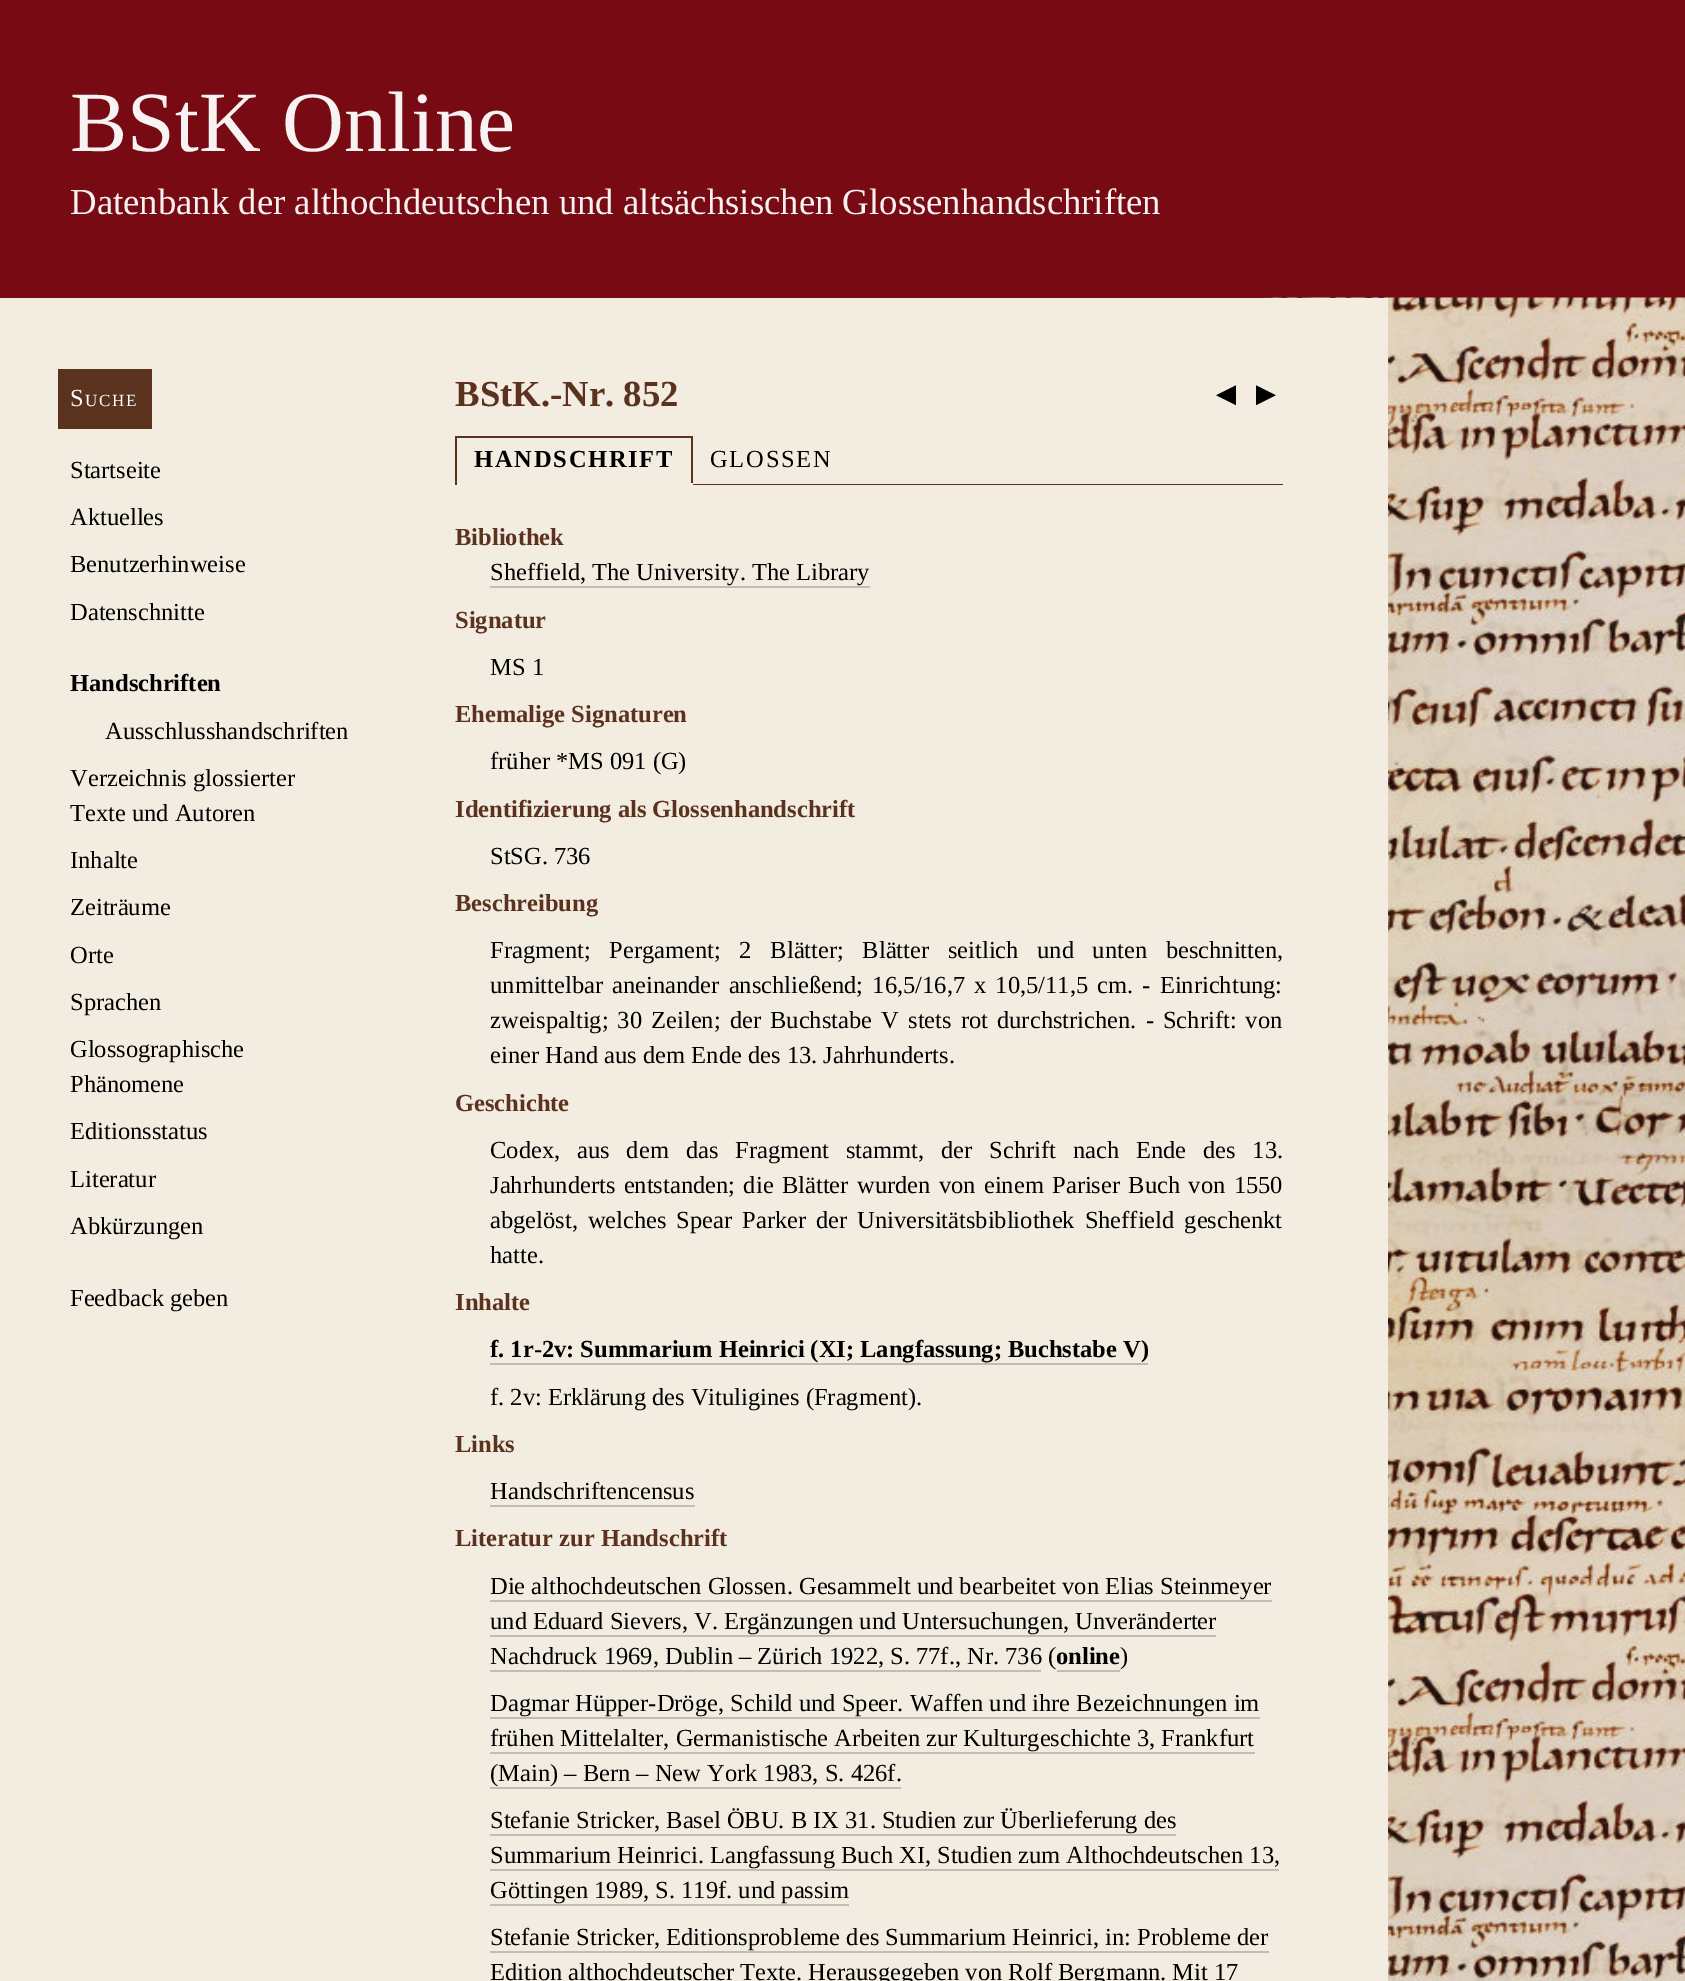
%!PS-Adobe-3.0
%%BoundingBox: 0 0 1685 1981
%%LanguageLevel: 3
%%Pages: 1
%%EndComments
%%BeginProlog
/m { moveto } bind def
/l { lineto } bind def
/h { closepath } bind def
/q { gsave } bind def
/Q { grestore } bind def
/fn { [ exch dup neg 0 0 3 -1 roll 0 0 ] selectfont } def
/tx { moveto show } def
/bx { rectfill } def
/im { 5 dict begin { /h /w /y /x /name } { exch def } forall
  gsave x y translate w h scale
  w h 8 [w 0 0 h 0 0] name (r) file false 3 colorimage grestore end } def
%%EndProlog
%%BeginSetup
<< /PageSize [1685 1981] >> setpagedevice
%%EndSetup
%%Page: 1 1
0 1981 translate 1 -1 scale
4 setmiterlimit
0.953 0.925 0.882 setrgbcolor
0 0 1685 1981 bx
0.471 0.039 0.078 setrgbcolor
0 0 1685 298 bx
/LiberationSerif-Regular 85.75 fn
0.973 0.953 0.953 setrgbcolor
(BStK Online) 70 151 tx
/LiberationSerif-Regular 36.75 fn
(Datenbank der althochdeutschen und altsächsischen Glossenhandschriften) 70 214 tx
0.353 0.196 0.118 setrgbcolor
58 369 94 60 bx
/LiberationSerif-Regular 24.5 fn
1 setgray
70 406 m 1.75 0 (S) ashow
/LiberationSerif-Regular 17 fn
85 406 m 1.75 0 (UCHE) ashow
/LiberationSerif-Regular 24.5 fn
0 setgray
(Startseite) 70 478 tx
(Aktuelles) 70 525 tx
(Benutzerhinweise) 70 572 tx
(Datenschnitte) 70 620 tx
/LiberationSerif-Bold 24.5 fn
(Handschriften) 70 691 tx
/LiberationSerif-Regular 24.5 fn
(Ausschlusshandschriften) 105 739 tx
(Verzeichnis glossierter) 70 786 tx
(Texte und Autoren) 70 821 tx
(Inhalte) 70 868 tx
(Zeiträume) 70 915 tx
(Orte) 70 963 tx
(Sprachen) 70 1010 tx
(Glossographische) 70 1057 tx
(Phänomene) 70 1092 tx
(Editionsstatus) 70 1139 tx
(Literatur) 70 1187 tx
(Abkürzungen) 70 1234 tx
(Feedback geben) 70 1306 tx
(image0.raw) 1265 297 420 1684 im
0.953 0.925 0.882 setrgbcolor
1265 298 123 1683 bx
/LiberationSerif-Bold 36.75 fn
0.353 0.196 0.118 setrgbcolor
(BStK.-Nr. 852) 455 406 tx
/DejaVuSans-Regular 26 fn
0 setgray
(◀) 1216 402 tx
(▶) 1256 402 tx
q 693 483 m 1283 483 l 1283 485 l 693 485 l h clip newpath
<< /ShadingType 2 /ColorSpace /DeviceRGB /Coords [869 485 869 436] /Extend [true true] /Function << /FunctionType 3 /Domain [0 1] /Functions [<< /FunctionType 2 /Domain [0 1] /C0 [0.353 0.196 0.118] /C1 [0.353 0.196 0.118] /N 1 >> << /FunctionType 2 /Domain [0 1] /C0 [0.953 0.925 0.882] /C1 [0.953 0.925 0.882] /N 1 >>] /Bounds [0.04] /Encode [0 1 0 1] >> >> shfill Q
0.353 0.196 0.118 setrgbcolor
455 436 238 2 bx
691 436 2 49 bx
0.953 0.925 0.882 setrgbcolor
691 483 2 2 bx
0.353 0.196 0.118 setrgbcolor
455 436 2 49 bx
/LiberationSerif-Bold 24.5 fn
0 setgray
474 467 m 1.75 0 (HANDSCHRIFT) ashow
/LiberationSerif-Regular 24.5 fn
710 467 m 1.75 0 (GLOSSEN) ashow
/LiberationSerif-Bold 24.5 fn
0.353 0.196 0.118 setrgbcolor
(Bibliothek) 455 545 tx
/LiberationSerif-Regular 24.5 fn
0 setgray
(Sheffield, The University. The Library) 490 580 tx
0.761 0.741 0.706 setrgbcolor
490 586 380 2 bx
/LiberationSerif-Bold 24.5 fn
0.353 0.196 0.118 setrgbcolor
(Signatur) 455 628 tx
/LiberationSerif-Regular 24.5 fn
0 setgray
(MS 1) 490 675 tx
/LiberationSerif-Bold 24.5 fn
0.353 0.196 0.118 setrgbcolor
(Ehemalige Signaturen) 455 722 tx
/LiberationSerif-Regular 24.5 fn
0 setgray
(früher *MS 091 \(G\)) 490 769 tx
/LiberationSerif-Bold 24.5 fn
0.353 0.196 0.118 setrgbcolor
(Identifizierung als Glossenhandschrift) 455 817 tx
/LiberationSerif-Regular 24.5 fn
0 setgray
(StSG. 736) 490 864 tx
/LiberationSerif-Bold 24.5 fn
0.353 0.196 0.118 setrgbcolor
(Beschreibung) 455 911 tx
/LiberationSerif-Regular 24.5 fn
0 setgray
490 958 m 12.5 0 32 (Fragment; Pergament; 2 Blätter; Blätter seitlich und unten beschnitten,) widthshow
490 993 m 3 0 32 (unmittelbar aneinander anschließend; 16,5/16,7 x 10,5/11,5 cm. - Einrichtung:) widthshow
490 1028 m 3 0 32 (zweispaltig; 30 Zeilen; der Buchstabe V stets rot durchstrichen. - Schrift: von) widthshow
(einer Hand aus dem Ende des 13. Jahrhunderts.) 490 1063 tx
/LiberationSerif-Bold 24.5 fn
0.353 0.196 0.118 setrgbcolor
(Geschichte) 455 1111 tx
/LiberationSerif-Regular 24.5 fn
0 setgray
490 1158 m 10.75 0 32 (Codex, aus dem das Fragment stammt, der Schrift nach Ende des 13.) widthshow
490 1193 m 2.25 0 32 (Jahrhunderts entstanden; die Blätter wurden von einem Pariser Buch von 1550) widthshow
490 1228 m 3.75 0 32 (abgelöst, welches Spear Parker der Universitätsbibliothek Sheffield geschenkt) widthshow
(hatte.) 490 1263 tx
/LiberationSerif-Bold 24.5 fn
0.353 0.196 0.118 setrgbcolor
(Inhalte) 455 1310 tx
0 setgray
(f. 1r-2v: Summarium Heinrici \(XI; Langfassung; Buchstabe V\)) 490 1357 tx
0.761 0.741 0.706 setrgbcolor
490 1363 658 2 bx
/LiberationSerif-Regular 24.5 fn
0 setgray
(f. 2v: Erklärung des Vituligines \(Fragment\).) 490 1405 tx
/LiberationSerif-Bold 24.5 fn
0.353 0.196 0.118 setrgbcolor
(Links) 455 1452 tx
/LiberationSerif-Regular 24.5 fn
0 setgray
(Handschriftencensus) 490 1499 tx
0.761 0.741 0.706 setrgbcolor
490 1505 205 2 bx
/LiberationSerif-Bold 24.5 fn
0.353 0.196 0.118 setrgbcolor
(Literatur zur Handschrift) 455 1546 tx
/LiberationSerif-Regular 24.5 fn
0 setgray
(Die althochdeutschen Glossen. Gesammelt und bearbeitet von Elias Steinmeyer) 490 1594 tx
0.761 0.741 0.706 setrgbcolor
490 1600 782 2 bx
0 setgray
(und Eduard Sievers, V. Ergänzungen und Untersuchungen, Unveränderter) 490 1629 tx
0.761 0.741 0.706 setrgbcolor
490 1635 726 2 bx
0 setgray
(Nachdruck 1969, Dublin – Zürich 1922, S. 77f., Nr. 736 \() 490 1664 tx
0.761 0.741 0.706 setrgbcolor
490 1670 551 2 bx
/LiberationSerif-Bold 24.5 fn
0 setgray
(online) 1056 1664 tx
0.761 0.741 0.706 setrgbcolor
1057 1670 63 2 bx
/LiberationSerif-Regular 24.5 fn
0 setgray
(\)) 1120 1664 tx
(Dagmar Hüpper-Dröge, Schild und Speer. Waffen und ihre Bezeichnungen im) 490 1711 tx
0.761 0.741 0.706 setrgbcolor
490 1717 770 2 bx
0 setgray
(frühen Mittelalter, Germanistische Arbeiten zur Kulturgeschichte 3, Frankfurt) 490 1746 tx
0.761 0.741 0.706 setrgbcolor
490 1752 765 2 bx
0 setgray
(\(Main\) – Bern – New York 1983, S. 426f.) 490 1781 tx
0.761 0.741 0.706 setrgbcolor
490 1787 411 2 bx
0 setgray
(Stefanie Stricker, Basel ÖBU. B IX 31. Studien zur Überlieferung des) 490 1828 tx
0.761 0.741 0.706 setrgbcolor
490 1834 686 2 bx
0 setgray
(Summarium Heinrici. Langfassung Buch XI, Studien zum Althochdeutschen 13,) 490 1863 tx
0.761 0.741 0.706 setrgbcolor
490 1869 789 2 bx
0 setgray
(Göttingen 1989, S. 119f. und passim) 490 1898 tx
0.761 0.741 0.706 setrgbcolor
490 1904 359 2 bx
0 setgray
(Stefanie Stricker, Editionsprobleme des Summarium Heinrici, in: Probleme der) 490 1945 tx
0.761 0.741 0.706 setrgbcolor
490 1951 779 2 bx
0 setgray
(Edition althochdeutscher Texte. Herausgegeben von Rolf Bergmann. Mit 17) 490 1980 tx
showpage
%%EOF
